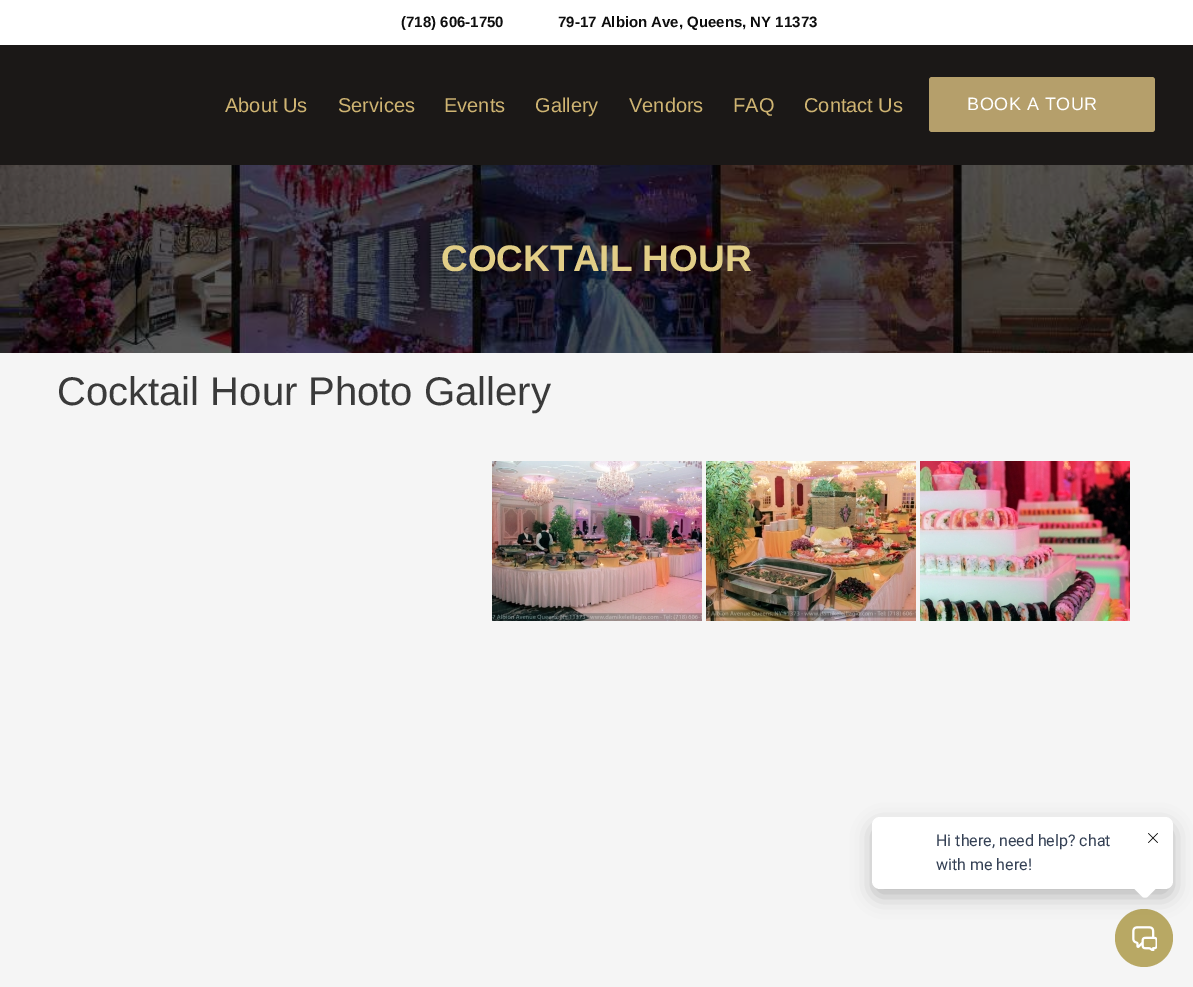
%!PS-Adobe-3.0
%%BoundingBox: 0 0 1193 987
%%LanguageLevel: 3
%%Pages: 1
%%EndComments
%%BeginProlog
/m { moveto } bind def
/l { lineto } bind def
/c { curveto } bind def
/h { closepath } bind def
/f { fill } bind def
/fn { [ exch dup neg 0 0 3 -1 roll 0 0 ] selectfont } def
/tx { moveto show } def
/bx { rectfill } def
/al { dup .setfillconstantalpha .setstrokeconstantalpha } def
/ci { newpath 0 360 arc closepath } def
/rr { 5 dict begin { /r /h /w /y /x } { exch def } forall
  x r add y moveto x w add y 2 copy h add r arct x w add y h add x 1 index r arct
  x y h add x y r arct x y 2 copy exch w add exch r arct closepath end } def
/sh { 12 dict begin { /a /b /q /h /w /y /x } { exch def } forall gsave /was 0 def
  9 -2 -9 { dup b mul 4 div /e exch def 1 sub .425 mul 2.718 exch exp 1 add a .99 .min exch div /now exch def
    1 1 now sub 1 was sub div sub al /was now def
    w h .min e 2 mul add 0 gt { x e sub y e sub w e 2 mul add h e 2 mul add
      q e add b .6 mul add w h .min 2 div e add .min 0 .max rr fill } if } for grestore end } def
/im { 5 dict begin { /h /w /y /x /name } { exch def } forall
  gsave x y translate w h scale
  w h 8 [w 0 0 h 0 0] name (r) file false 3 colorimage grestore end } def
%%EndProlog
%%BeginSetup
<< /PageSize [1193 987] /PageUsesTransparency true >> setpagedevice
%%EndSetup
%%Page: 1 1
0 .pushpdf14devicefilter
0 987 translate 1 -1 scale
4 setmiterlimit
0.961 setgray
0 0 1193 987 bx
1 setgray
0 0 1193 45 bx
/LiberationSans-Bold 15 fn
0.051 setgray
(\(718\) 606-1750) 401 27 tx
(79-17 Albion Ave, Queens, NY 11373) 558 27 tx
0.106 0.094 0.09 setrgbcolor
0 45 1193 120 bx
/LiberationSans-Regular 20 fn
0.812 0.706 0.447 setrgbcolor
(About Us) 225 112 tx
(Services) 338 112 tx
(Events) 444 112 tx
(Gallery) 535 112 tx
(Vendors) 629 112 tx
(FAQ) 733 112 tx
(Contact Us) 804 112 tx
0.71 0.624 0.42 setrgbcolor
929 77 226 55 3 rr f
/LiberationSans-Regular 18 fn
1 setgray
967 110 m 0.5 0 (BOOK A TOUR) ashow
(image0.raw) 0 165 1193 188 im
/LiberationSans-Bold 37 fn
0.886 0.808 0.529 setrgbcolor
(COCKTAIL HOUR) 441 271 tx
/LiberationSans-Regular 40 fn
0.227 setgray
(Cocktail Hour Photo Gallery) 57 405 tx
(image1.raw) 492 461 210 160 im
(image2.raw) 706 461 210 160 im
(image3.raw) 920 461 210 160 im
0.722 0.659 0.392 setrgbcolor
1144 938 29 ci f
(image5.raw) 1132 926 25 25 im
0 setgray
872 825 301 72 8 10 0.24 sh
1 setgray
872 817 301 72 8 rr f
/Roboto-Regular 16 fn
0.204 0.251 0.329 setrgbcolor
(Hi there, need help? chat) 936 846 tx
(with me here!) 936 870 tx
1 setgray
1148 873.5 m 1156.5 882 l 1158 883.5 1158 886.5 1156.5 888 c 1148 896.5 l 1146.5 898 1143.5 898 1142 896.5 c 1133.5 888 l 1132 886.5 1132 883.5 1133.5 882 c 1142 873.5 l 1143.5 872 1146.5 872 1148 873.5 c h f
(image4.raw) 1148 833 10 10 im
.poppdf14devicefilter showpage
%%EOF
